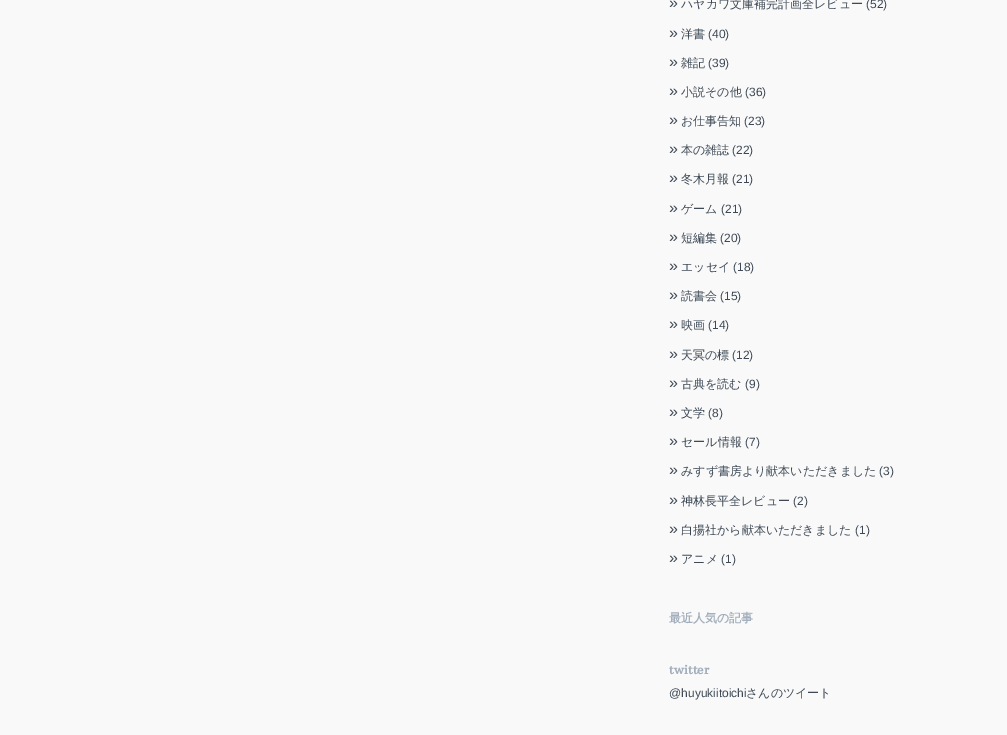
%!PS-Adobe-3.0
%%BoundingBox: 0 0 1007 735
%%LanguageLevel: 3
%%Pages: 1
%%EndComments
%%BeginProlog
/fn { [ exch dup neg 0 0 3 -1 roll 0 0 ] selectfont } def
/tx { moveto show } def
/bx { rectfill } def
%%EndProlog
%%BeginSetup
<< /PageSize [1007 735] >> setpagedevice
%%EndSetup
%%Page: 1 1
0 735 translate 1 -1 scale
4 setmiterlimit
0.976 setgray
0 0 1007 735 bx
/LiberationSans-Regular 16 fn
0.243 0.286 0.333 setrgbcolor
(») 669 8 tx
/WenQuanYiZenHei-Medium 12 fn
(ハヤカワ文庫補完計画全レビュー) 681 8 tx
/LiberationSans-Regular 12 fn
(\(52\)) 866 8 tx
/LiberationSans-Regular 16 fn
(») 669 38 tx
/WenQuanYiZenHei-Medium 12 fn
(洋書) 681 38 tx
/LiberationSans-Regular 12 fn
(\(40\)) 708 38 tx
/LiberationSans-Regular 16 fn
(») 669 67 tx
/WenQuanYiZenHei-Medium 12 fn
(雑記) 681 67 tx
/LiberationSans-Regular 12 fn
(\(39\)) 708 67 tx
/LiberationSans-Regular 16 fn
(») 669 96 tx
/WenQuanYiZenHei-Medium 12 fn
(小説その他) 681 96 tx
/LiberationSans-Regular 12 fn
(\(36\)) 745 96 tx
/LiberationSans-Regular 16 fn
(») 669 125 tx
/WenQuanYiZenHei-Medium 12 fn
(お仕事告知) 681 125 tx
/LiberationSans-Regular 12 fn
(\(23\)) 744 125 tx
/LiberationSans-Regular 16 fn
(») 669 154 tx
/WenQuanYiZenHei-Medium 12 fn
(本の雑誌) 681 154 tx
/LiberationSans-Regular 12 fn
(\(22\)) 732 154 tx
/LiberationSans-Regular 16 fn
(») 669 183 tx
/WenQuanYiZenHei-Medium 12 fn
(冬木月報) 681 183 tx
/LiberationSans-Regular 12 fn
(\(21\)) 732 183 tx
/LiberationSans-Regular 16 fn
(») 669 213 tx
/WenQuanYiZenHei-Medium 12 fn
(ゲーム) 681 213 tx
/LiberationSans-Regular 12 fn
(\(21\)) 721 213 tx
/LiberationSans-Regular 16 fn
(») 669 242 tx
/WenQuanYiZenHei-Medium 12 fn
(短編集) 681 242 tx
/LiberationSans-Regular 12 fn
(\(20\)) 720 242 tx
/LiberationSans-Regular 16 fn
(») 669 271 tx
/WenQuanYiZenHei-Medium 12 fn
(エッセイ) 681 271 tx
/LiberationSans-Regular 12 fn
(\(18\)) 733 271 tx
/LiberationSans-Regular 16 fn
(») 669 300 tx
/WenQuanYiZenHei-Medium 12 fn
(読書会) 681 300 tx
/LiberationSans-Regular 12 fn
(\(15\)) 720 300 tx
/LiberationSans-Regular 16 fn
(») 669 329 tx
/WenQuanYiZenHei-Medium 12 fn
(映画) 681 329 tx
/LiberationSans-Regular 12 fn
(\(14\)) 708 329 tx
/LiberationSans-Regular 16 fn
(») 669 359 tx
/WenQuanYiZenHei-Medium 12 fn
(天冥の標) 681 359 tx
/LiberationSans-Regular 12 fn
(\(12\)) 732 359 tx
/LiberationSans-Regular 16 fn
(») 669 388 tx
/WenQuanYiZenHei-Medium 12 fn
(古典を読む) 681 388 tx
/LiberationSans-Regular 12 fn
(\(9\)) 745 388 tx
/LiberationSans-Regular 16 fn
(») 669 417 tx
/WenQuanYiZenHei-Medium 12 fn
(文学) 681 417 tx
/LiberationSans-Regular 12 fn
(\(8\)) 708 417 tx
/LiberationSans-Regular 16 fn
(») 669 446 tx
/WenQuanYiZenHei-Medium 12 fn
(セール情報) 681 446 tx
/LiberationSans-Regular 12 fn
(\(7\)) 745 446 tx
/LiberationSans-Regular 16 fn
(») 669 475 tx
/WenQuanYiZenHei-Medium 12 fn
(みすず書房より献本いただきました) 681 475 tx
/LiberationSans-Regular 12 fn
(\(3\)) 879 475 tx
/LiberationSans-Regular 16 fn
(») 669 505 tx
/WenQuanYiZenHei-Medium 12 fn
(神林長平全レビュー) 681 505 tx
/LiberationSans-Regular 12 fn
(\(2\)) 793 505 tx
/LiberationSans-Regular 16 fn
(») 669 534 tx
/WenQuanYiZenHei-Medium 12 fn
(白揚社から献本いただきました) 681 534 tx
/LiberationSans-Regular 12 fn
(\(1\)) 855 534 tx
/LiberationSans-Regular 16 fn
(») 669 563 tx
/WenQuanYiZenHei-Medium 12 fn
(アニメ) 681 563 tx
/LiberationSans-Regular 12 fn
(\(1\)) 721 563 tx
/WenQuanYiZenHei-Bold 12 fn
0.639 0.686 0.737 setrgbcolor
(最近人気の記事) 669 622 tx
/ArbutusSlab-Bold 12 fn
(twitter) 669 674 tx
/LiberationSans-Regular 12 fn
0.243 0.286 0.333 setrgbcolor
(@huyukiitoichi) 669 697 tx
/WenQuanYiZenHei-Medium 12 fn
(さんのツイート) 746 697 tx
showpage
%%EOF
